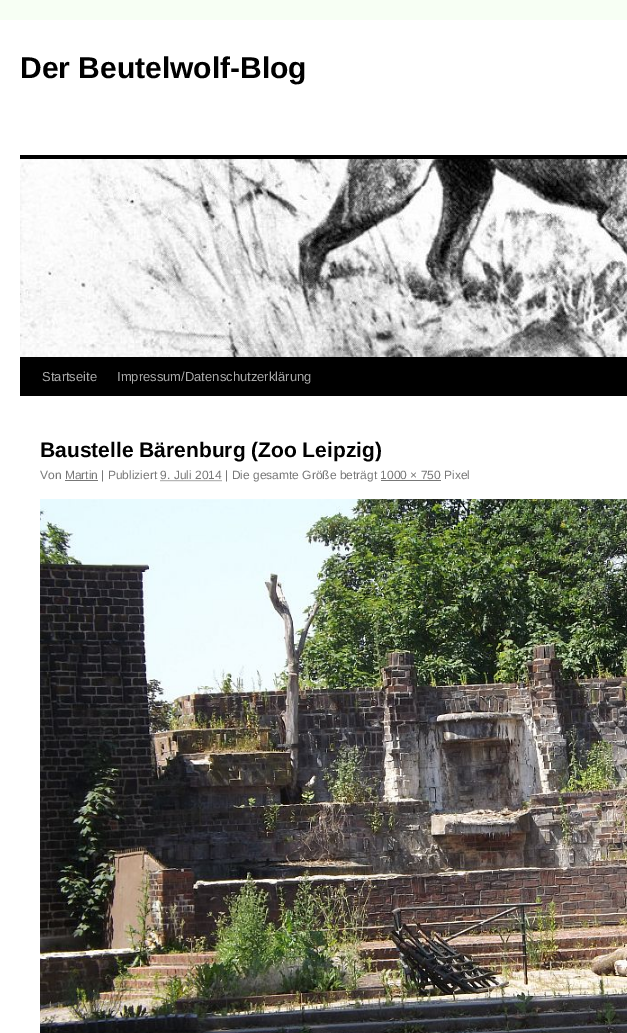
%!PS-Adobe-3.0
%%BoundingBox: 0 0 627 1033
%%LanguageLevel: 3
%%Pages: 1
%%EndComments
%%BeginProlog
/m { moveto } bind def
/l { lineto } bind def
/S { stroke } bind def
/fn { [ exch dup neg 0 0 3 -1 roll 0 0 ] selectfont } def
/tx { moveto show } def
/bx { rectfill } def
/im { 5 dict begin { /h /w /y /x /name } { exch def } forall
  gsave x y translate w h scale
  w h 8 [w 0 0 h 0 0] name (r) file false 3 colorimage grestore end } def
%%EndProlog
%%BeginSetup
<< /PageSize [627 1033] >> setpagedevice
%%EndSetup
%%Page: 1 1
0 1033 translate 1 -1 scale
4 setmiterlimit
0.969 1 0.957 setrgbcolor
0 0 627 1033 bx
1 setgray
0 20 627 1013 bx
/LiberationSans-Bold 30 fn
0 setgray
(Der Beutelwolf-Blog) 20 78 tx
20 155 607 4 bx
20 357 607 39 bx
(image0.raw) 20 159 607 198 im
/LiberationSans-Regular 13 fn
0.667 setgray
(Startseite) 42 381 tx
(Impressum/Datenschutzerklärung) 117 381 tx
/LiberationSans-Bold 21 fn
0 setgray
(Baustelle Bärenburg \(Zoo Leipzig\)) 40 457 tx
/LiberationSans-Regular 12 fn
0.467 setgray
(Von Martin | Publiziert 9. Juli 2014 | Die gesamte Größe beträgt 1000 × 750 Pixel) 40 479 tx
65 480 33 1 bx
[1 1] 0 setdash
160.5 480.5 m 222 480.5 l S
381 480 60 1 bx
(image1.raw) 40 499 587 534 im
showpage
%%EOF
